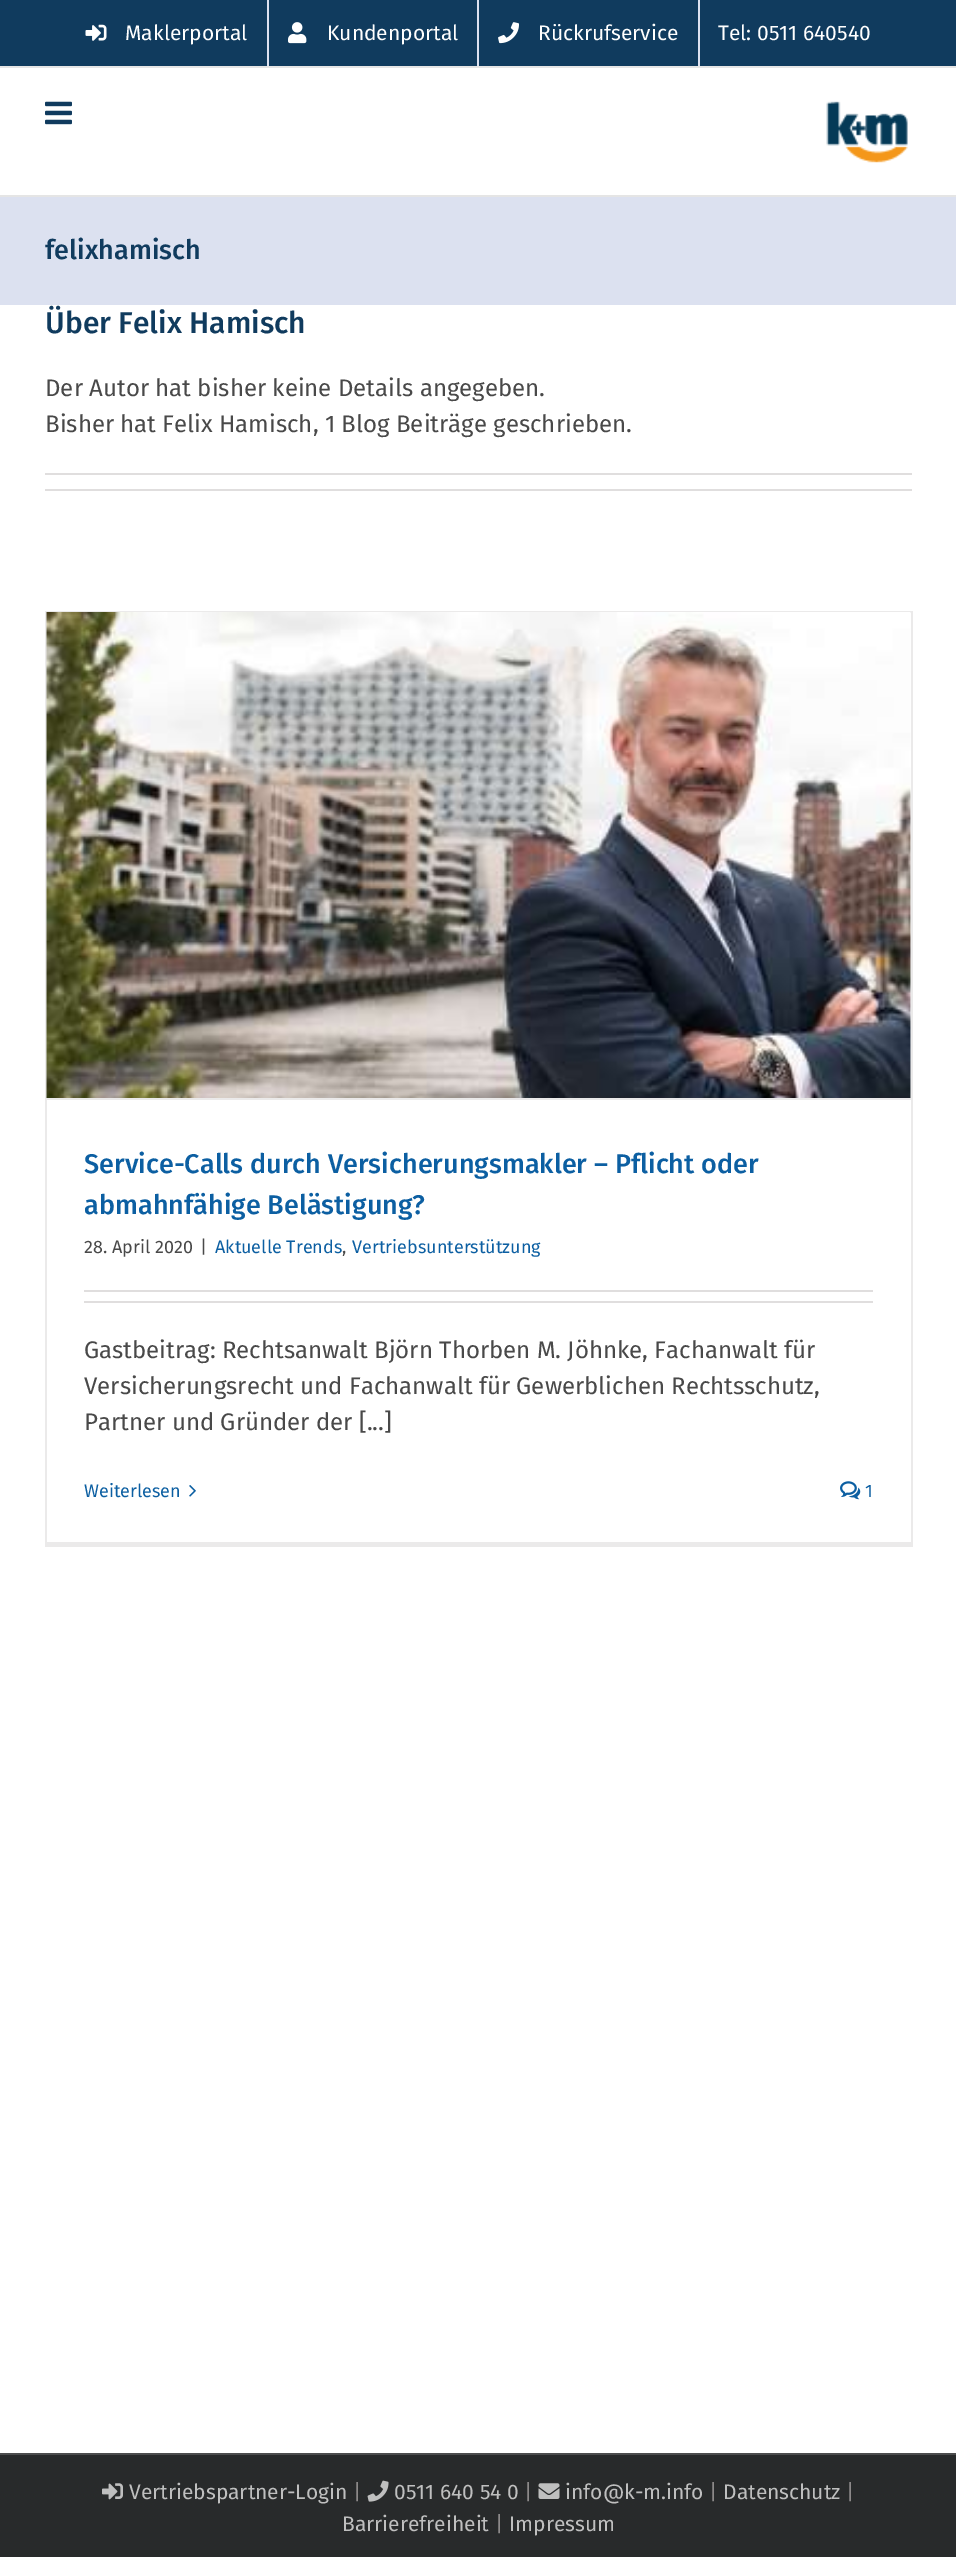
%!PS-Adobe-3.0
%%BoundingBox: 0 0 956 2557
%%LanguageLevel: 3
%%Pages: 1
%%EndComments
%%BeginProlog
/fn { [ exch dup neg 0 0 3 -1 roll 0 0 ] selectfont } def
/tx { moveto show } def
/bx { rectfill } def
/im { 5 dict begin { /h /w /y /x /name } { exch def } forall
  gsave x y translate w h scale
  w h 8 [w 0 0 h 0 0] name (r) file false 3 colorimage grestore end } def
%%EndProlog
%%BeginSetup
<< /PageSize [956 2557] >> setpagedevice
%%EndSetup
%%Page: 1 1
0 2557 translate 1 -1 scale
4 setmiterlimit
1 setgray
0 0 956 2557 bx
0.063 0.231 0.369 setrgbcolor
0 0 956 66 bx
0.898 setgray
0 66 956 2 bx
(image0.raw) 85 24 22 17 im
/FiraSans-Regular 21 fn
1 setgray
(Maklerportal) 125 40 tx
0.863 0.882 0.941 setrgbcolor
267 0 2 66 bx
(image1.raw) 288 22 19 22 im
1 setgray
(Kundenportal) 327 40 tx
0.863 0.882 0.941 setrgbcolor
477 0 2 66 bx
(image2.raw) 498 22 21 22 im
1 setgray
(Rückrufservice) 538 40 tx
0.863 0.882 0.941 setrgbcolor
698 0 2 66 bx
1 setgray
(Tel: 0511 640540) 718 40 tx
0.898 setgray
0 195 956 2 bx
(image3.raw) 45 101 27 24 im
(image4.raw) 826 101 82 62 im
0.863 0.882 0.941 setrgbcolor
0 197 956 108 bx
/FiraSans-Medium 27 fn
0.063 0.231 0.369 setrgbcolor
(felixhamisch) 45 259 tx
/FiraSans-Medium 30 fn
(Über Felix Hamisch) 45 333 tx
/FiraSans-Regular 24 fn
0.286 setgray
(Der Autor hat bisher keine Details angegeben.) 45 396 tx
(Bisher hat Felix Hamisch, 1 Blog Beiträge geschrieben.) 45 432 tx
0.878 0.871 0.871 setrgbcolor
45 473 867 2 bx
45 489 867 2 bx
0.922 0.918 0.918 setrgbcolor
45 611 867 2 bx
911 611 2 936 bx
45 1542 867 5 bx
45 611 2 936 bx
47 1098 864 2 bx
(image5.raw) 46 612 865 486 im
/FiraSans-Medium 27 fn
0.047 0.373 0.635 setrgbcolor
(Service-Calls durch Versicherungsmakler – Pflicht oder) 84 1173 tx
(abmahnfähige Belästigung?) 84 1214 tx
/FiraSans-Regular 18 fn
0.286 setgray
(28. April 2020) 84 1253 tx
(|) 200 1253 tx
0.047 0.373 0.635 setrgbcolor
(Aktuelle Trends) 215 1253 tx
0.286 setgray
(,) 342 1253 tx
0.047 0.373 0.635 setrgbcolor
(Vertriebsunterstützung) 352 1253 tx
0.878 0.871 0.871 setrgbcolor
84 1290 789 2 bx
84 1301 789 2 bx
/FiraSans-Regular 24 fn
0.286 setgray
(Gastbeitrag: Rechtsanwalt Björn Thorben M. Jöhnke, Fachanwalt für) 84 1358 tx
(Versicherungsrecht und Fachanwalt für Gewerblichen Rechtsschutz,) 84 1394 tx
(Partner und Gründer der [...]) 84 1430 tx
/FiraSans-Regular 18 fn
0.047 0.373 0.635 setrgbcolor
(Weiterlesen) 84 1497 tx
(image6.raw) 189 1485 7 12 im
(image7.raw) 840 1481 21 19 im
(1) 865 1497 tx
0.157 0.165 0.169 setrgbcolor
0 2455 956 102 bx
0.294 0.298 0.302 setrgbcolor
0 2453 956 2 bx
(image8.raw) 102 2483 21 17 im
/FiraSans-Regular 21 fn
0.749 setgray
(Vertriebspartner-Login) 129 2499 tx
0.549 0.537 0.537 setrgbcolor
(|) 353 2499 tx
(image9.raw) 367 2480 22 22 im
0.749 setgray
(0511 640 54 0) 394 2499 tx
0.549 0.537 0.537 setrgbcolor
(|) 524 2499 tx
(image10.raw) 538 2483 22 16 im
0.749 setgray
(info@k-m.info) 565 2499 tx
0.549 0.537 0.537 setrgbcolor
(|) 709 2499 tx
0.749 setgray
(Datenschutz) 723 2499 tx
0.549 0.537 0.537 setrgbcolor
(|) 846 2499 tx
0.749 setgray
(Barrierefreiheit) 342 2531 tx
0.549 0.537 0.537 setrgbcolor
(|) 495 2531 tx
0.749 setgray
(Impressum) 509 2531 tx
showpage
%%EOF
